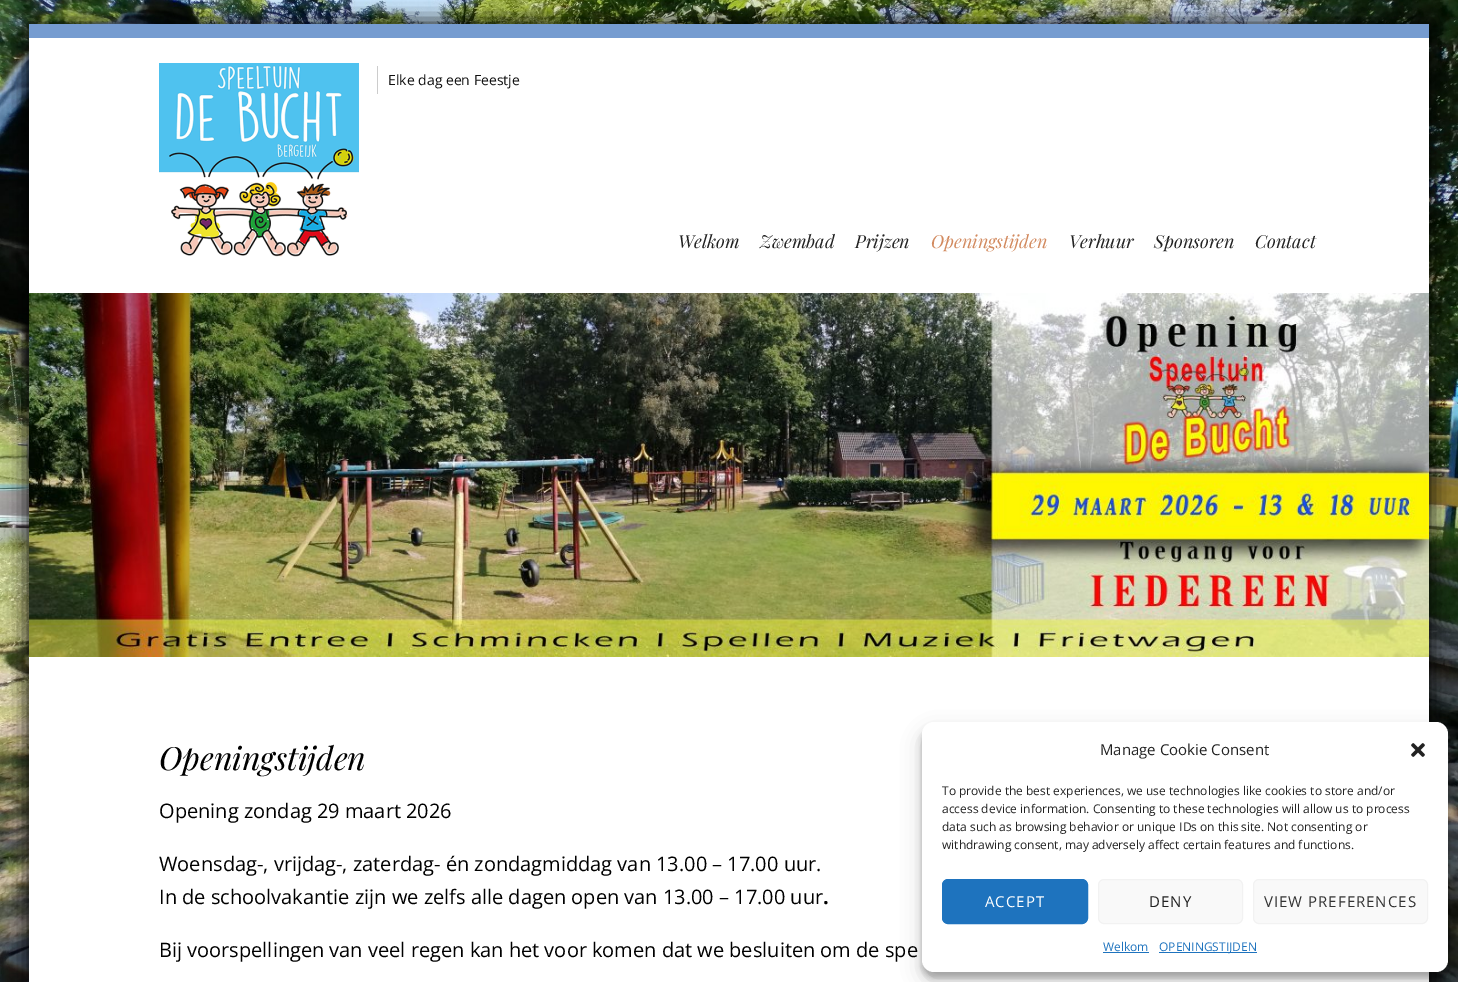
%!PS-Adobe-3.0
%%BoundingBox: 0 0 1458 982
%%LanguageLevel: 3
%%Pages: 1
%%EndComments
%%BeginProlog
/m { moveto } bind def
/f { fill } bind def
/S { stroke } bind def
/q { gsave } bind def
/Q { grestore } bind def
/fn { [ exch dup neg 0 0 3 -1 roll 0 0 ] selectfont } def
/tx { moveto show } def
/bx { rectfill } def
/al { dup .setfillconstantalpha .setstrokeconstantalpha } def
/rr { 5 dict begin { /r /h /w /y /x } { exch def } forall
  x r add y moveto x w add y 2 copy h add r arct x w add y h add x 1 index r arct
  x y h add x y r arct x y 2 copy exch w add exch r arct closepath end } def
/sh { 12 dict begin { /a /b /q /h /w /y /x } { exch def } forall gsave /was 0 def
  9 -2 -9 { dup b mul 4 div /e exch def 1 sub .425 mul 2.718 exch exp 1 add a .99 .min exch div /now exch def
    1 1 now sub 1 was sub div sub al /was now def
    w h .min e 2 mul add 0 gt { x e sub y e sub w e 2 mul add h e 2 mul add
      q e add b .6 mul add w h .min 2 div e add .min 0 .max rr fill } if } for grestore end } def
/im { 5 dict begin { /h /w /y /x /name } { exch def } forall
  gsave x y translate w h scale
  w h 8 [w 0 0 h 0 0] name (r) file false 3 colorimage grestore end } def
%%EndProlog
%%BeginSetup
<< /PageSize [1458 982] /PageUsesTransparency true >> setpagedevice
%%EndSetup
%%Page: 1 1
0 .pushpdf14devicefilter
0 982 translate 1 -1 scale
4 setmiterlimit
1 setgray
0 0 1458 982 bx
(image0.raw) 0 0 1458 982 im
0 setgray
24 19 1410 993 0 10 0.75 sh
0.463 0.612 0.816 setrgbcolor
29 24 1400 14 bx
1 setgray
29 38 1400 255 bx
(image1.raw) 159 63 200 194 im
0.8 setgray
377 66 1 28 bx
/OpenSans-Regular 14 fn
0.059 setgray
(Elke dag een Feestje) 388 85 tx
/PlayfairDisplay-Italic 18 fn
0.133 setgray
(Welkom) 678 248 tx
(Zwembad) 760 248 tx
(Prijzen) 855 248 tx
0.824 0.541 0.373 setrgbcolor
(Openingstijden) 931 248 tx
0.133 setgray
(Verhuur) 1069 248 tx
(Sponsoren) 1154 248 tx
(Contact) 1255 248 tx
(image2.raw) 29 293 1400 364 im
1 setgray
29 657 1400 325 bx
/PlayfairDisplay-Italic 32 fn
0 setgray
(Openingstijden) 159 770 tx
/OpenSans-Regular 20 fn
(Opening zondag 29 maart 2026) 159 818 tx
(Woensdag-, vrijdag-, zaterdag- én zondagmiddag van 13.00 – 17.00 uur.) 159 871 tx
(In de schoolvakantie zijn we zelfs alle dagen open van 13.00 – 17.00 uur) 159 904 tx
/OpenSans-Bold 20 fn
(.) 823 904 tx
/OpenSans-Regular 20 fn
(Bij voorspellingen van veel regen kan het voor komen dat we besluiten om de spe) 159 957 tx
922 728 526 250 12 3 0.23 sh
922 732 526 250 12 10 0.19 sh
1 setgray
922 722 526 250 12 rr f
/OpenSans-Regular 15 fn
0.133 setgray
(Manage Cookie Consent) 1100 755 tx
(image3.raw) 1411 743 14 14 im
/OpenSans-Regular 12 fn
(To provide the best experiences, we use technologies like cookies to store and/or) 942 795 tx
(access device information. Consenting to these technologies will allow us to process) 942 813 tx
(data such as browsing behavior or unique IDs on this site. Not consenting or) 942 831 tx
(withdrawing consent, may adversely affect certain features and functions.) 942 849 tx
0.118 0.451 0.745 setrgbcolor
942.5 879.5 145 44 5.5 rr q f Q
S
/OpenSans-Regular 15 fn
1 setgray
985 907 m 1 0 (ACCEPT) ashow
0.976 setgray
1098.5 879.5 144 44 5.5 rr q f Q
0.949 setgray
S
0.133 setgray
1149 907 m 1 0 (DENY) ashow
0.976 setgray
1253.5 879.5 174 44 5.5 rr q f Q
0.949 setgray
S
0.2 setgray
1264 907 m 1 0 (VIEW PREFERENCES) ashow
/OpenSans-Regular 12 fn
0.118 0.451 0.745 setrgbcolor
(Welkom) 1103 951 tx
1103 952 46 1 bx
1159 952 98 1 bx
(OPENINGSTIJDEN) 1159 951 tx
.poppdf14devicefilter showpage
%%EOF
